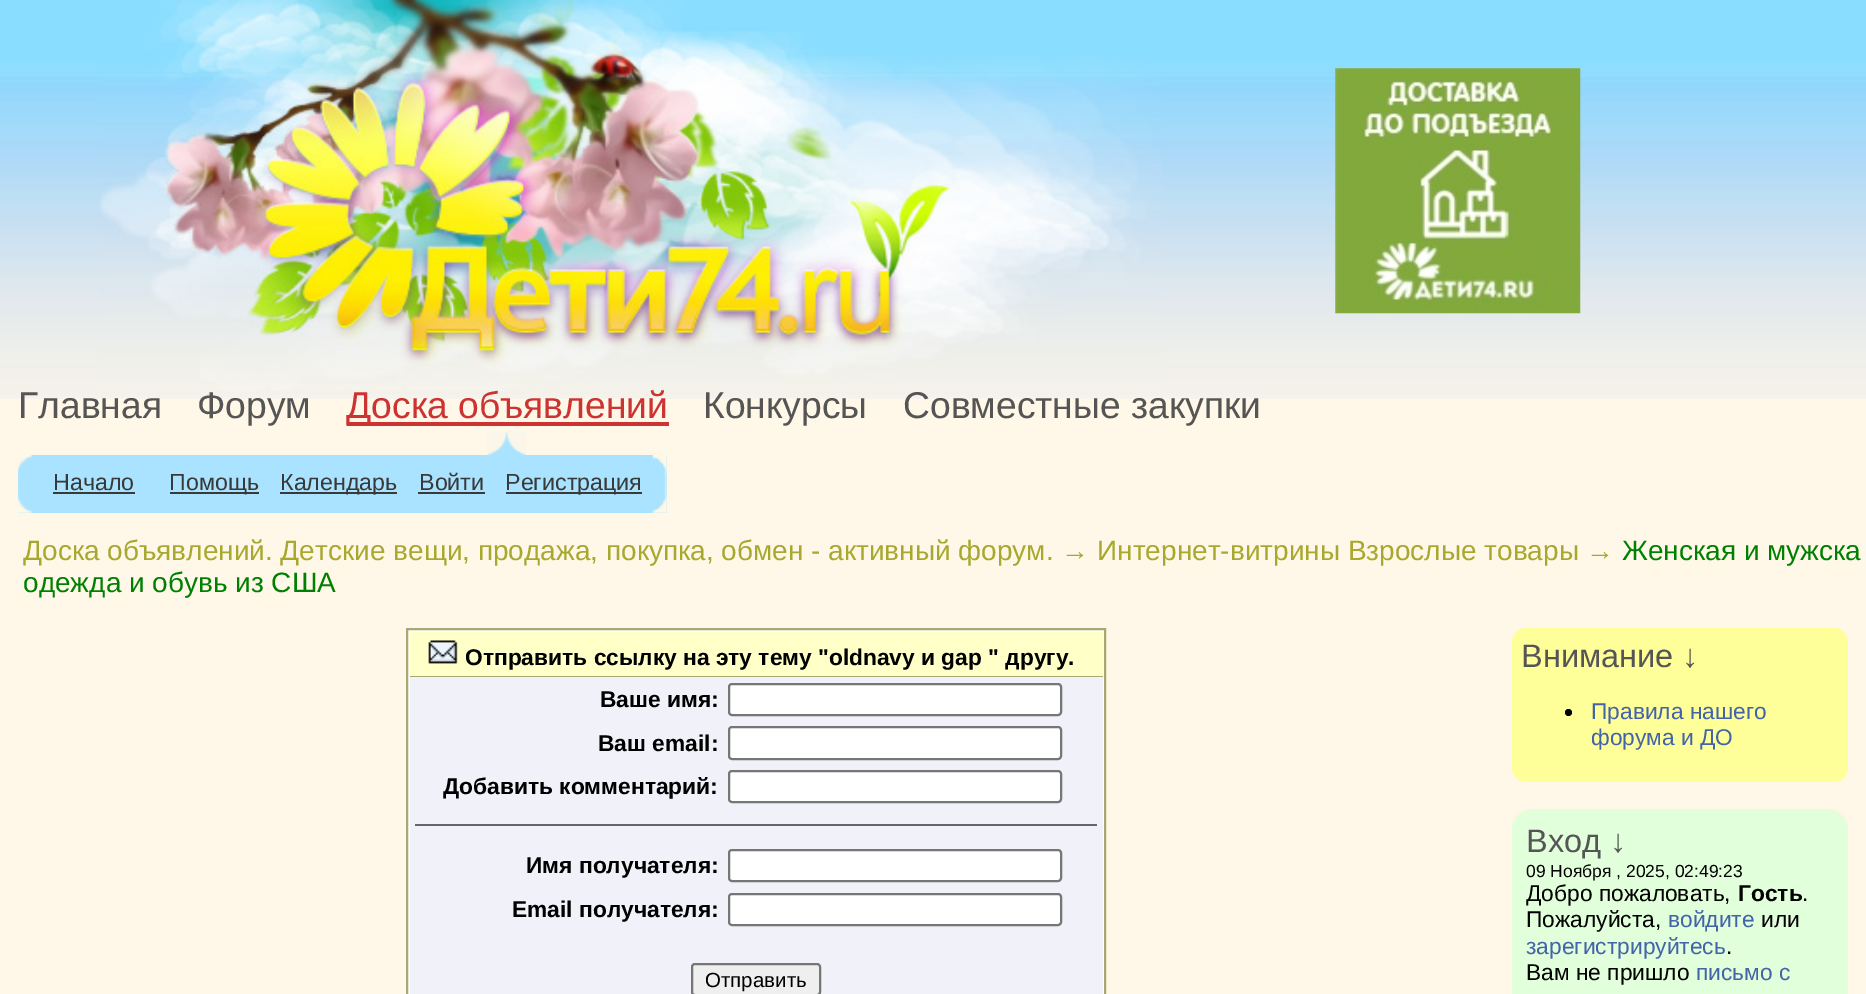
%!PS-Adobe-3.0
%%BoundingBox: 0 0 1866 994
%%LanguageLevel: 3
%%Pages: 1
%%EndComments
%%BeginProlog
/m { moveto } bind def
/l { lineto } bind def
/h { closepath } bind def
/f { fill } bind def
/S { stroke } bind def
/q { gsave } bind def
/Q { grestore } bind def
/w { setlinewidth } bind def
/fn { [ exch dup neg 0 0 3 -1 roll 0 0 ] selectfont } def
/tx { moveto show } def
/bx { rectfill } def
/ci { newpath 0 360 arc closepath } def
/rr { 5 dict begin { /r /h /w /y /x } { exch def } forall
  x r add y moveto x w add y 2 copy h add r arct x w add y h add x 1 index r arct
  x y h add x y r arct x y 2 copy exch w add exch r arct closepath end } def
/im { 5 dict begin { /h /w /y /x /name } { exch def } forall
  gsave x y translate w h scale
  w h 8 [w 0 0 h 0 0] name (r) file false 3 colorimage grestore end } def
%%EndProlog
%%BeginSetup
<< /PageSize [1866 994] >> setpagedevice
%%EndSetup
%%Page: 1 1
0 994 translate 1 -1 scale
4 setmiterlimit
1 0.973 0.91 setrgbcolor
0 0 1866 994 bx
(image0.raw) 0 0 1866 399 im
(image1.raw) 99 0 1063 391 im
(image2.raw) 1335 68 246 246 im
/LiberationSans-Regular 37.25 fn
0.333 setgray
(Главная) 18 418 tx
(Форум) 197 418 tx
0.8 0.2 0.2 setrgbcolor
347 422 322 4 bx
(Доска объявлений) 346 418 tx
0.333 setgray
(Конкурсы) 703 418 tx
(Совместные закупки) 903 418 tx
(image3.raw) 486 431 41 24 im
0.663 0.89 1 setrgbcolor
18 455 649 58 bx
(image4.raw) 18 455 14 58 im
/LiberationSans-Regular 23.25 fn
0.224 setgray
(Начало) 53 490 tx
53 492 82 2 bx
170 492 89 2 bx
(Помощь) 169 490 tx
280 492 117 2 bx
(Календарь) 280 490 tx
(Войти) 419 490 tx
418 492 67 2 bx
506 492 136 2 bx
(Регистрация) 505 490 tx
(image5.raw) 652 455 15 58 im
/LiberationSans-Regular 28 fn
0.659 0.659 0.184 setrgbcolor
(Доска объявлений. Детские вещи, продажа, покупка, обмен - активный форум. → Интернет-витрины Взрослые товары →) 23 560 tx
0 0.502 0 setrgbcolor
(Женская и мужска) 1622 560 tx
(одежда и обувь из США) 23 592 tx
1 setgray
407 629 m 1105 629 l 1105 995 l 407 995 l h q f Q
0.659 0.659 0.451 setrgbcolor
2 w
S
1 1 0.784 setrgbcolor
410 632 693 44 bx
0.659 0.659 0.451 setrgbcolor
410 676 693 1 bx
(image6.raw) 428 640 30 24 im
/LiberationSans-Bold 22.75 fn
0 setgray
(Отправить ссылку на эту тему "oldnavy и gap " другу.) 465 665 tx
0.941 0.945 0.976 setrgbcolor
410 677 693 317 bx
0 setgray
(Ваше имя:) 600 707 tx
1 setgray
729 684 332 31 3 rr q f Q
0.463 setgray
S
0 setgray
(Ваш email:) 598 751 tx
1 setgray
729 727 332 32 3 rr q f Q
0.463 setgray
S
0 setgray
(Добавить комментарий:) 443 794 tx
1 setgray
729 771 332 31 3 rr q f Q
0.463 setgray
S
0.4 setgray
415 824 682 2 bx
0 setgray
(Имя получателя:) 526 873 tx
1 setgray
729 850 332 31 3 rr q f Q
0.463 setgray
S
0 setgray
(Email получателя:) 512 917 tx
1 setgray
729 894 332 31 3 rr q f Q
0.463 setgray
S
0.937 setgray
692 964 128 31 3 rr q f Q
0.463 setgray
S
/LiberationSans-Regular 20.5 fn
0 setgray
(Отправить) 705 987 tx
1 1 0.6 setrgbcolor
1512 628 336 154 14 rr f
/LiberationSans-Regular 32.5 fn
0.333 setgray
(Внимание ↓) 1521 667 tx
0 setgray
1568.5 712.5 3.5 ci f
/LiberationSans-Regular 22.75 fn
0.267 0.392 0.659 setrgbcolor
(Правила нашего) 1591 719 tx
(форума и ДО) 1591 745 tx
0.886 1 0.859 setrgbcolor
1512 809 336 185 bx
(image7.raw) 1512 809 14 14 im
(image8.raw) 1834 809 14 14 im
/LiberationSans-Regular 32.5 fn
0.333 setgray
(Вход ↓) 1526 852 tx
/LiberationSans-Regular 17.5 fn
0 setgray
(09 Ноября , 2025, 02:49:23) 1526 877 tx
/LiberationSans-Regular 22.75 fn
(Добро пожаловать,) 1526 901 tx
/LiberationSans-Bold 22.75 fn
(Гость) 1738 901 tx
/LiberationSans-Regular 22.75 fn
(.) 1802 901 tx
(Пожалуйста,) 1526 927 tx
0.267 0.392 0.659 setrgbcolor
(войдите) 1668 927 tx
0 setgray
(или) 1761 927 tx
0.267 0.392 0.659 setrgbcolor
(зарегистрируйтесь) 1526 954 tx
0 setgray
(.) 1726 954 tx
(Вам не пришло) 1526 980 tx
0.267 0.392 0.659 setrgbcolor
(письмо с) 1696 980 tx
showpage
%%EOF
